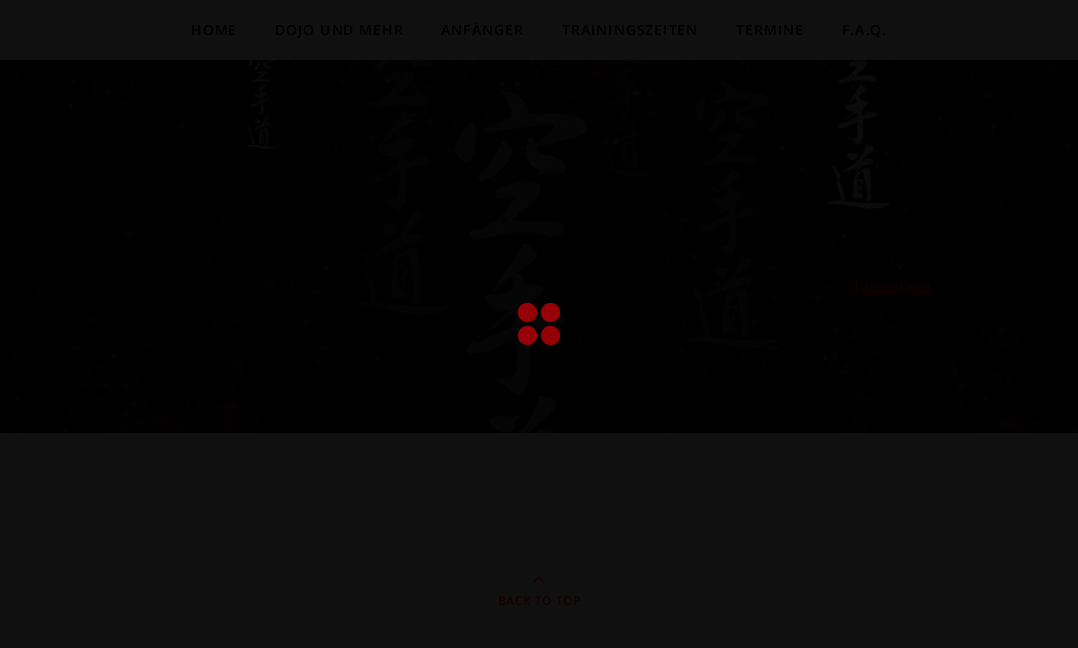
%!PS-Adobe-3.0
%%BoundingBox: 0 0 1078 648
%%LanguageLevel: 3
%%Pages: 1
%%EndComments
%%BeginProlog
/m { moveto } bind def
/f { fill } bind def
/fn { [ exch dup neg 0 0 3 -1 roll 0 0 ] selectfont } def
/bx { rectfill } def
/al { dup .setfillconstantalpha .setstrokeconstantalpha } def
/ci { newpath 0 360 arc closepath } def
/rr { 5 dict begin { /r /h /w /y /x } { exch def } forall
  x r add y moveto x w add y 2 copy h add r arct x w add y h add x 1 index r arct
  x y h add x y r arct x y 2 copy exch w add exch r arct closepath end } def
/sh { 12 dict begin { /a /b /q /h /w /y /x } { exch def } forall gsave /was 0 def
  9 -2 -9 { dup b mul 4 div /e exch def 1 sub .425 mul 2.718 exch exp 1 add a .99 .min exch div /now exch def
    1 1 now sub 1 was sub div sub al /was now def
    w h .min e 2 mul add 0 gt { x e sub y e sub w e 2 mul add h e 2 mul add
      q e add b .6 mul add w h .min 2 div e add .min 0 .max rr fill } if } for grestore end } def
/im { 5 dict begin { /h /w /y /x /name } { exch def } forall
  gsave x y translate w h scale
  w h 8 [w 0 0 h 0 0] name (r) file false 3 colorimage grestore end } def
%%EndProlog
%%BeginSetup
<< /PageSize [1078 648] /PageUsesTransparency true >> setpagedevice
%%EndSetup
%%Page: 1 1
0 .pushpdf14devicefilter
0 648 translate 1 -1 scale
4 setmiterlimit
1 setgray
0 0 1078 648 bx
(image0.raw) 0 60 1078 373 im
0 setgray
0 1 1078 60 0 2.5 0.1 sh
0.063 setgray
0 0 1078 60 bx
/OpenSans-SemiBold 14 fn
0 setgray
191 35 m 1 0 (HOME) ashow
275 35 m 1 0 (DOJO UND MEHR) ashow
441 35 m 1 0 (ANFÄNGER) ashow
562 35 m 1 0 (TRAININGSZEITEN) ashow
736 35 m 1 0 (TERMINE) ashow
842 35 m 1 0 (F.A.Q.) ashow
0.071 0 0 setrgbcolor
848 292 85 1 bx
/OpenSans-Regular 15 fn
848 291 m 1 0 (Homepage) ashow
0.063 setgray
0 433 1078 215 bx
(image1.raw) 532 576 12 8 im
/OpenSans-SemiBold 12 fn
0.071 0 0 setrgbcolor
498 605 m 0.5 0 (BACK TO TOP) ashow
0.58 al
1 0 0.031 setrgbcolor
527.5 312.5 9.5 ci f
550.5 312.5 9.5 ci f
527.5 335.5 9.5 ci f
550.5 335.5 9.5 ci f
.poppdf14devicefilter showpage
%%EOF
